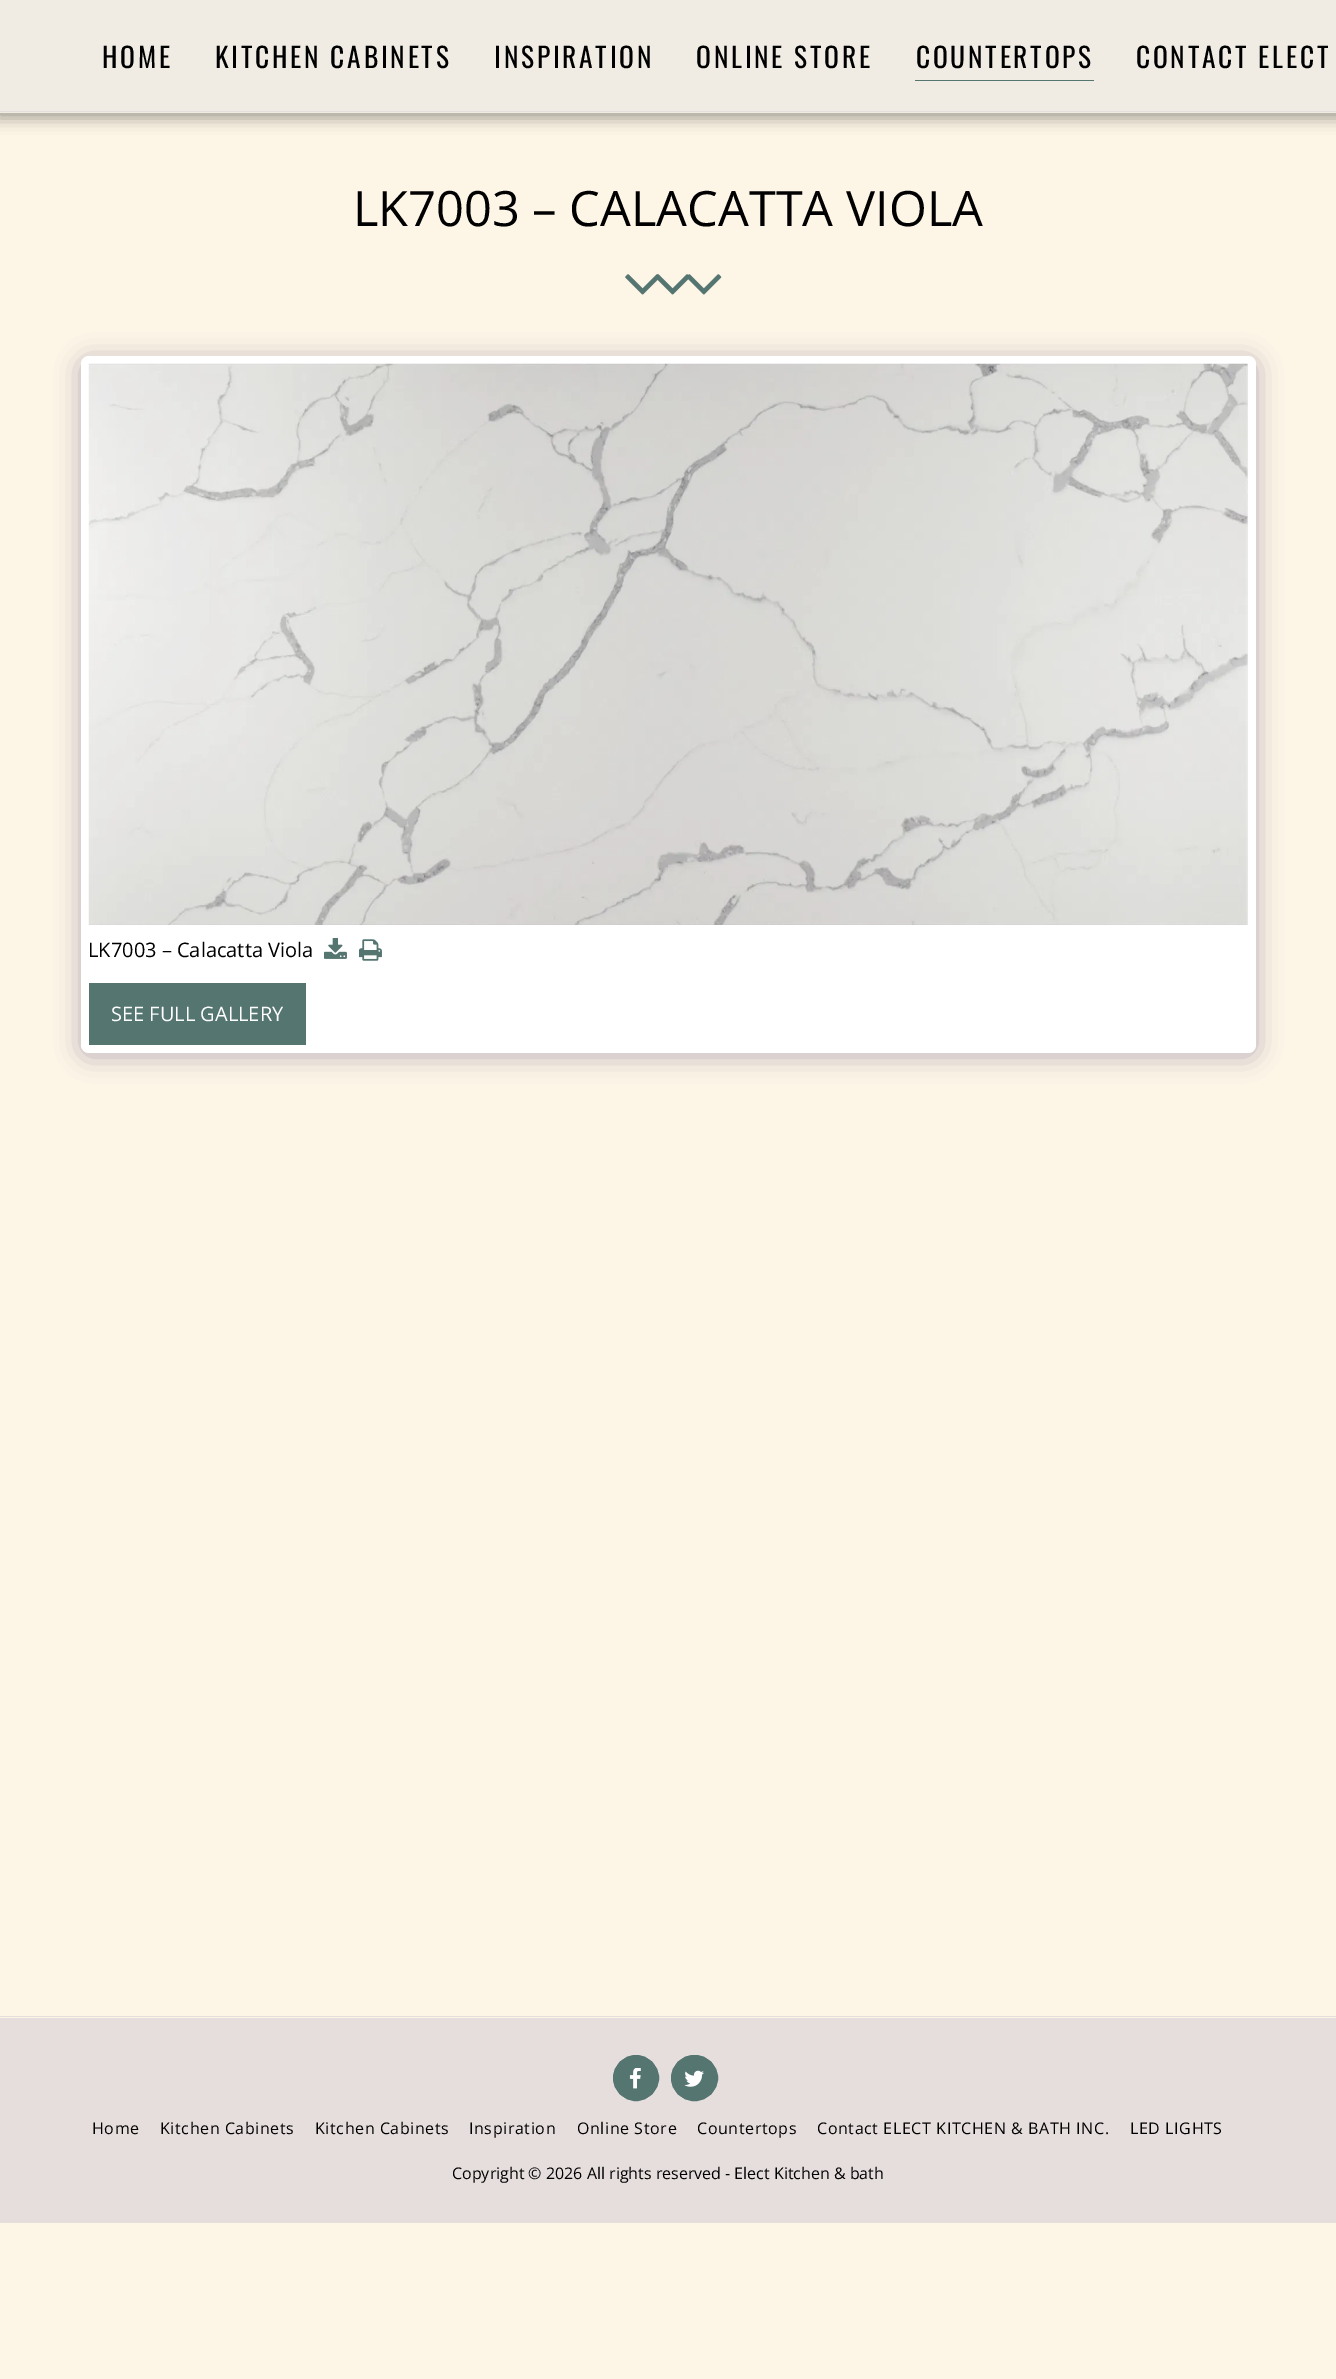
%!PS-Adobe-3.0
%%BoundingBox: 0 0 1336 2379
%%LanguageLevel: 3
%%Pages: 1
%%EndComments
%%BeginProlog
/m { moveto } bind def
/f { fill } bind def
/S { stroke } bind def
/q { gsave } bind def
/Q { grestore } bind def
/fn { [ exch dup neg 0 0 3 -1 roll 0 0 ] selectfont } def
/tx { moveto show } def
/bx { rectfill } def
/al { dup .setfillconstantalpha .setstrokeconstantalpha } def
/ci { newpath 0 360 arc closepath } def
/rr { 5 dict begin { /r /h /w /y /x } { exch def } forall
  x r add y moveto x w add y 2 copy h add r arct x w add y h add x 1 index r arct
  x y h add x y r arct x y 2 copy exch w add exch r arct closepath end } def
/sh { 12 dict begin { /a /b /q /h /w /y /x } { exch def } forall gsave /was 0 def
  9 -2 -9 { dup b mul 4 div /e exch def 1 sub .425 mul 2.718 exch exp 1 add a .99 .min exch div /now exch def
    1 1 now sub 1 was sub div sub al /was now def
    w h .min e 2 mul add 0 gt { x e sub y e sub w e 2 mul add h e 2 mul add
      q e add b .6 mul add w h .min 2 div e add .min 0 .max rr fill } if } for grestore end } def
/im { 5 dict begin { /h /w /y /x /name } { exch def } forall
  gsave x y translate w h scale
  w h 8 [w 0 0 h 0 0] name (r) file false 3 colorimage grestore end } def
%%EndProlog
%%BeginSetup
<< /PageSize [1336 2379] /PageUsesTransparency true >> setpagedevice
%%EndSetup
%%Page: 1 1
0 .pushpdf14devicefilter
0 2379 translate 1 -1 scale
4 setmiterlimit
0.992 0.961 0.902 setrgbcolor
0 0 1336 2379 bx
0 setgray
-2 0 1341 118 0 7.5 0.35 sh
0.941 0.925 0.89 setrgbcolor
0 0 1336 113 bx
0.902 0.871 0.867 setrgbcolor
0 111 1336 1 bx
/Oswald-Regular 27.5 fn
0 setgray
102 68 m 2.75 0 (HOME) ashow
215 68 m 2.75 0 (KITCHEN CABINETS) ashow
494 68 m 2.75 0 (INSPIRATION) ashow
696 68 m 2.75 0 (ONLINE STORE) ashow
916 68 m 2.75 0 (COUNTERTOPS) ashow
0.333 0.459 0.443 setrgbcolor
915 80 179 1 bx
0 setgray
1136 68 m 2.75 0 (CONTACT ELECT) ashow
/OpenSans-Regular 48.75 fn
(LK7003 – CALACATTA VIOLA) 353 226 tx
(image0.raw) 625 274 35 21 im
(image1.raw) 657 274 32 21 im
(image2.raw) 688 274 34 21 im
0.302 0.247 0.478 setrgbcolor
81 360 1175 696 8 12.5 0.4 sh
1 setgray
81 356 1175 697 8 rr f
(image3.raw) 88 363 1160 562 im
/OpenSans-Regular 20 fn
0 setgray
(LK7003 – Calacatta Viola) 88 957 tx
(image4.raw) 324 938 23 21 im
(image5.raw) 359 939 23 22 im
0.333 0.459 0.443 setrgbcolor
89 983 217 62 bx
1 setgray
(SEE FULL GALLERY) 111 1021 tx
0.902 0.871 0.867 setrgbcolor
0 2016 1336 1 bx
0 2018 1336 205 bx
0.333 0.459 0.443 setrgbcolor
636 2078 22.5 ci q f Q
S
(image6.raw) 629 2068 12 21 im
671.5 2055.5 46 45 22.5 rr q f Q
S
(image7.raw) 684 2070 20 17 im
/OpenSans-Regular 16 fn
0 setgray
92 2134 m 0.6 0 (Home) ashow
160 2134 m 0.6 0 (Kitchen Cabinets) ashow
315 2134 m 0.6 0 (Kitchen Cabinets) ashow
469 2134 m 0.6 0 (Inspiration) ashow
577 2134 m 0.6 0 (Online Store) ashow
697 2134 m 0.6 0 (Countertops) ashow
817 2134 m 0.6 0 (Contact ELECT KITCHEN & BATH INC.) ashow
1130 2134 m 0.6 0 (LED LIGHTS) ashow
(Copyright © 2026 All rights reserved - Elect Kitchen & bath) 452 2179 tx
.poppdf14devicefilter showpage
%%EOF
